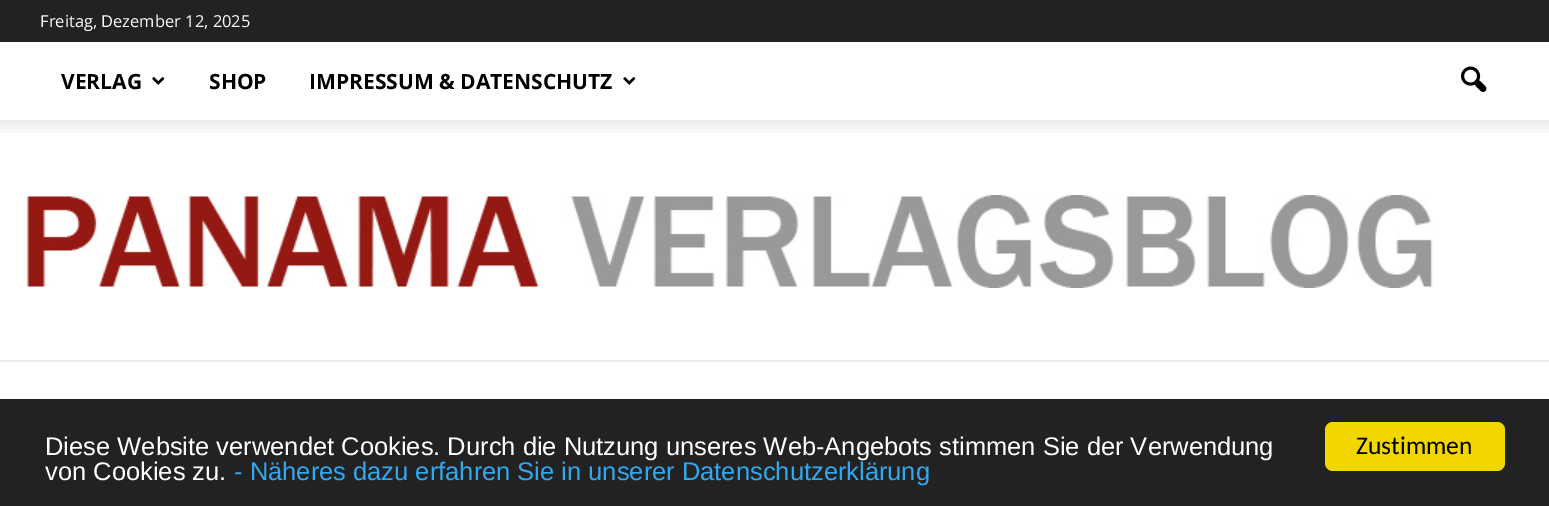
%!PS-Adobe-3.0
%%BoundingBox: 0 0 1549 506
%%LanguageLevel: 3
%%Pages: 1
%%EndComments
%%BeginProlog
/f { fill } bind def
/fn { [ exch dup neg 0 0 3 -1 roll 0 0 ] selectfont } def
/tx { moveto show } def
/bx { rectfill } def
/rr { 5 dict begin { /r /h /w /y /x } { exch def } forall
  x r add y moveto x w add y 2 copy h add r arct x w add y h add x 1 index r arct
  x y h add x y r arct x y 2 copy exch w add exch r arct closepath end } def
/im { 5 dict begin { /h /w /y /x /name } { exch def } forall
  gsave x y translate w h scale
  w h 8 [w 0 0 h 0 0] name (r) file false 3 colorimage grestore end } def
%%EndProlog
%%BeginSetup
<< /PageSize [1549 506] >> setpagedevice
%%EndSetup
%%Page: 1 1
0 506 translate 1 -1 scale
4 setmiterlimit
1 setgray
0 0 1549 506 bx
0.133 setgray
0 0 1549 42 bx
/OpenSans-Regular 16.5 fn
1 setgray
(Freitag, Dezember 12, 2025) 40 27 tx
/OpenSans-Bold 21 fn
0 setgray
(VERLAG) 61 89 tx
(image0.raw) 152 77 13 8 im
(SHOP) 209 89 tx
(IMPRESSUM & DATENSCHUTZ) 309 89 tx
(image0.raw) 623 77 13 8 im
(image1.raw) 1461 66 26 26 im
(image2.raw) 0 120 1549 13 im
0.933 setgray
0 360 1549 2 bx
(image3.raw) 26 195 1407 93 im
0.133 setgray
0 399 1549 107 bx
/LiberationSans-Regular 25.5 fn
1 setgray
(Diese Website verwendet Cookies. Durch die Nutzung unseres Web-Angebots stimmen Sie der Verwendung) 45 455 tx
(von Cookies zu.) 45 480 tx
0.192 0.659 0.941 setrgbcolor
(- Näheres dazu erfahren Sie in unserer Datenschutzerklärung) 234 480 tx
0.945 0.839 0 setrgbcolor
1325 422 180 49 8 rr f
/Carlito-Regular 25.5 fn
0 setgray
(Zustimmen) 1356 454 tx
showpage
%%EOF
